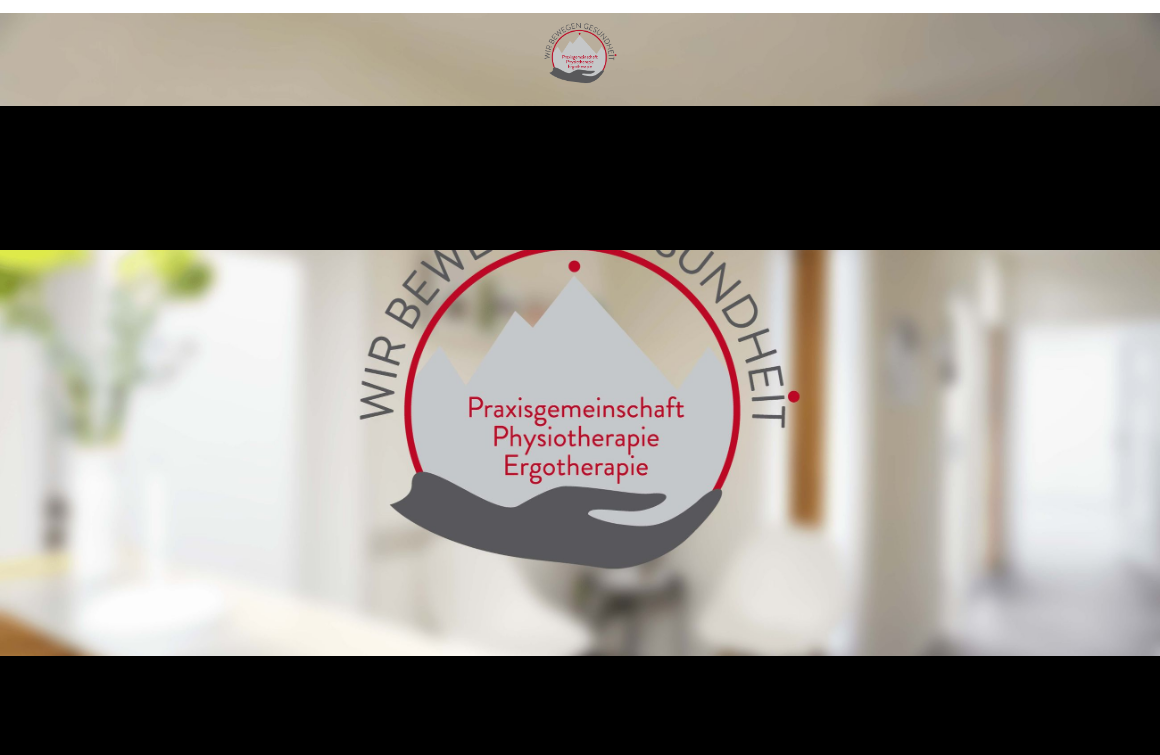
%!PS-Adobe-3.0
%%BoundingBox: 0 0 1160 755
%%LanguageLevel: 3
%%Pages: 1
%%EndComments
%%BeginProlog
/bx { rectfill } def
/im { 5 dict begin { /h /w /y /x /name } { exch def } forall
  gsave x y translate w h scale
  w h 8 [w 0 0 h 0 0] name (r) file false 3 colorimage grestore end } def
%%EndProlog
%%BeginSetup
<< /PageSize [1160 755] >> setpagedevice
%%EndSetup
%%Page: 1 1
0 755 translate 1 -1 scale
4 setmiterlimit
1 setgray
0 0 1160 755 bx
(image0.raw) 0 13 1160 643 im
(image1.raw) 544 23 73 61 im
0 setgray
0 106 1160 144 bx
0 656 1160 99 bx
showpage
%%EOF
